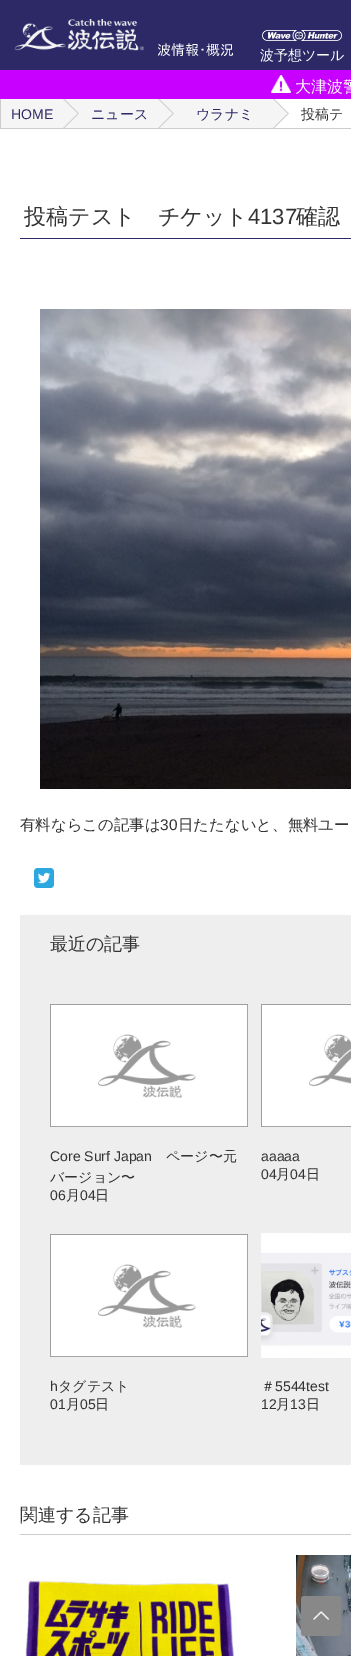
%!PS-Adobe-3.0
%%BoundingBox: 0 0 351 1656
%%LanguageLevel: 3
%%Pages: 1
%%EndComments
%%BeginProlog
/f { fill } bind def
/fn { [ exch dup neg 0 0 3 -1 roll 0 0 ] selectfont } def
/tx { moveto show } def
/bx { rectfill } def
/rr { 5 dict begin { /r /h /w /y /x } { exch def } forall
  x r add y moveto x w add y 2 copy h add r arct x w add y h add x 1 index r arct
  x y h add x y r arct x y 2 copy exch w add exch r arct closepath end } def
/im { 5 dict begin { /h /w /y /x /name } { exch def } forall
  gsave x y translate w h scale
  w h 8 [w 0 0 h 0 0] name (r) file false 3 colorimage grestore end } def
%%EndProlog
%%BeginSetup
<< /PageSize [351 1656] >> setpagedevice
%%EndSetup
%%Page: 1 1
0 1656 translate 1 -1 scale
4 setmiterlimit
1 setgray
0 0 351 1656 bx
0.173 0.161 0.4 setrgbcolor
0 0 351 70 bx
(image0.raw) 14 19 130 32 im
/IPAPGothic-Regular 14 fn
1 setgray
(波情報･概況) 157 55 tx
(image1.raw) 262 30 80 11 im
/WenQuanYiZenHei-Medium 14 fn
(波予想ツール) 260 60 tx
0.784 0 1 setrgbcolor
0 70 351 29 bx
(image2.raw) 271 75 20 18 im
/WenQuanYiZenHei-Medium 16 fn
1 setgray
(大津波警) 295 92 tx
0.8 setgray
273 128 78 1 bx
0 99 1 30 bx
0.961 setgray
1 99 62 29 bx
0.8 setgray
1 128 272 1 bx
/LiberationSans-Regular 14 fn
0.173 0.161 0.4 setrgbcolor
(HOME) 11 119 tx
0.961 setgray
64 99 94 29 bx
(image3.raw) 63 99 16 29 im
/WenQuanYiZenHei-Medium 14 fn
0.173 0.161 0.4 setrgbcolor
(ニュース) 91 119 tx
0.961 setgray
159 99 114 29 bx
(image3.raw) 158 99 16 29 im
0.173 0.161 0.4 setrgbcolor
(ウラナミ) 196 119 tx
(image4.raw) 273 99 16 29 im
0.2 setgray
(投稿テ) 301 119 tx
0.173 0.161 0.4 setrgbcolor
20 238 331 1 bx
/WenQuanYiZenHei-Medium 22 fn
0.2 setgray
(投稿テスト　チケット) 24 224 tx
/LiberationSans-Regular 22 fn
(4137) 248 224 tx
/WenQuanYiZenHei-Medium 22 fn
(確認) 296 224 tx
(image5.raw) 40 309 311 480 im
/WenQuanYiZenHei-Medium 15.4 fn
(有料ならこの記事は) 20 830 tx
/LiberationSans-Regular 15.4 fn
(30) 160 830 tx
/WenQuanYiZenHei-Medium 15.4 fn
(日たたないと、無料ユー) 178 830 tx
(image6.raw) 34 868 20 20 im
0.933 setgray
20 915 331 550 bx
/WenQuanYiZenHei-Medium 18 fn
0.2 setgray
(最近の記事) 50 950 tx
(image7.raw) 50 1004 198 123 im
/LiberationSans-Regular 14 fn
(Core Surf Japan) 50 1161 tx
/WenQuanYiZenHei-Medium 14 fn
(ページ〜元) 166 1161 tx
(バージョン〜) 50 1182 tx
/LiberationSans-Regular 14 fn
(06) 50 1200 tx
/WenQuanYiZenHei-Medium 14 fn
(月) 66 1200 tx
/LiberationSans-Regular 14 fn
(04) 80 1200 tx
/WenQuanYiZenHei-Medium 14 fn
(日) 95 1200 tx
(image8.raw) 261 1004 90 123 im
/LiberationSans-Regular 14 fn
(aaaaa) 261 1161 tx
(04) 261 1179 tx
/WenQuanYiZenHei-Medium 14 fn
(月) 276 1179 tx
/LiberationSans-Regular 14 fn
(04) 290 1179 tx
/WenQuanYiZenHei-Medium 14 fn
(日) 306 1179 tx
(image7.raw) 50 1234 198 123 im
/LiberationSans-Regular 14 fn
(h) 50 1391 tx
/WenQuanYiZenHei-Medium 14 fn
(タグテスト) 58 1391 tx
/LiberationSans-Regular 14 fn
(01) 50 1409 tx
/WenQuanYiZenHei-Medium 14 fn
(月) 66 1409 tx
/LiberationSans-Regular 14 fn
(05) 80 1409 tx
/WenQuanYiZenHei-Medium 14 fn
(日) 95 1409 tx
(image9.raw) 261 1233 90 125 im
(＃) 261 1391 tx
/LiberationSans-Regular 14 fn
(5544test) 275 1391 tx
(12) 261 1409 tx
/WenQuanYiZenHei-Medium 14 fn
(月) 276 1409 tx
/LiberationSans-Regular 14 fn
(13) 290 1409 tx
/WenQuanYiZenHei-Medium 14 fn
(日) 306 1409 tx
0.8 setgray
20 1534 331 1 bx
/WenQuanYiZenHei-Medium 18 fn
0.2 setgray
(関連する記事) 20 1521 tx
(image10.raw) 25 1578 211 78 im
(image11.raw) 296 1555 55 101 im
0.533 setgray
301 1596 40 40 3 rr f
(image12.raw) 313 1611 17 9 im
showpage
%%EOF
